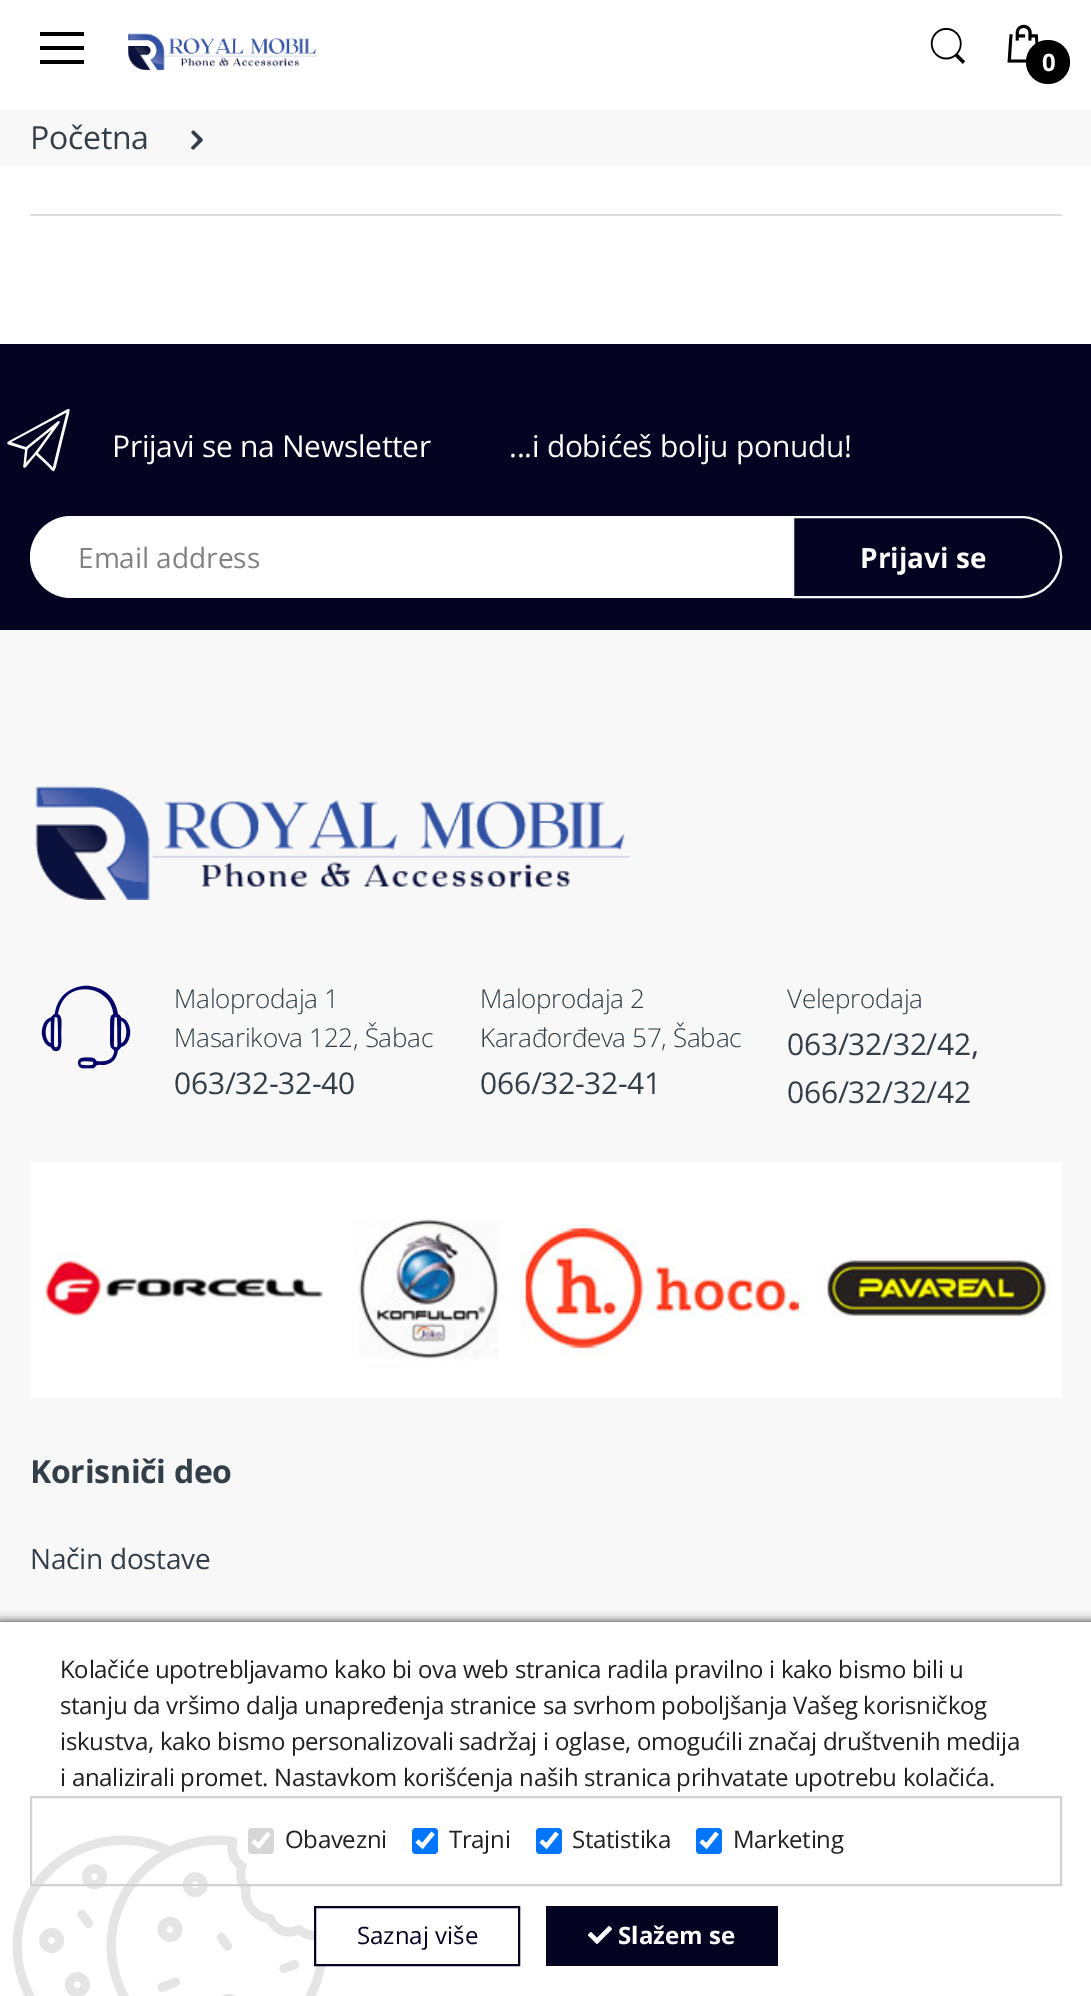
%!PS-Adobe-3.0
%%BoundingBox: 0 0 1091 1996
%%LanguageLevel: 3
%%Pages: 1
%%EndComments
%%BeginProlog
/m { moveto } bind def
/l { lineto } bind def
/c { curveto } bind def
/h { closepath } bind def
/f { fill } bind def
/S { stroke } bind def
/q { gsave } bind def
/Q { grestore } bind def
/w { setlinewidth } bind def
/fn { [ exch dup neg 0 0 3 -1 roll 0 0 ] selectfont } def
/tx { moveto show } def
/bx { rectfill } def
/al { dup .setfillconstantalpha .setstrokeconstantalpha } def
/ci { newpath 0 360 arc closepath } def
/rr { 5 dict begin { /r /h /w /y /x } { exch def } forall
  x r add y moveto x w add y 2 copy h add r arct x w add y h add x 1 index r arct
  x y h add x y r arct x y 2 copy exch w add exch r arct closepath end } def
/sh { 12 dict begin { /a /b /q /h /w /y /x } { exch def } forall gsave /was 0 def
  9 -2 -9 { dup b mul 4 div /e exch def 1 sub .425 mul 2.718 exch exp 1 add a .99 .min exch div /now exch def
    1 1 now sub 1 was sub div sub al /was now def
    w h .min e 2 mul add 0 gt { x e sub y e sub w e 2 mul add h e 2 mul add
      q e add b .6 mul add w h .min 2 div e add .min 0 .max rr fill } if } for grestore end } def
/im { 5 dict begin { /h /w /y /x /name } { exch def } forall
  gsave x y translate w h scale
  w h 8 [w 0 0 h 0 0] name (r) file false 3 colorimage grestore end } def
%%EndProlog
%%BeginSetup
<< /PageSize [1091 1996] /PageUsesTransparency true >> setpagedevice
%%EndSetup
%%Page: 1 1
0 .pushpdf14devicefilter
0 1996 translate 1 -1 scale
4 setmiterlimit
1 setgray
0 0 1091 1996 bx
0 setgray
40 32 44 4 bx
40 46 44 4 bx
40 60 44 4 bx
(image0.raw) 128 33 190 37 im
(image1.raw) 930 27 36 37 im
(image2.raw) 1007 24 32 39 im
1048 62 22 ci f
/OpenSans-Bold 24 fn
1 setgray
1042 71 m -0.3 0 (0) ashow
0.973 setgray
0 110 1091 56 bx
/OpenSans-Regular 32 fn
0.2 0.243 0.282 setrgbcolor
30 149 m -0.3 0 (Početna) ashow
(image3.raw) 190 130 13 20 im
0.867 setgray
30 214 1032 2 bx
0.016 0.016 0.133 setrgbcolor
0 344 1091 286 bx
(image4.raw) 7 408 63 64 im
/OpenSans-Regular 30 fn
1 setgray
112 457 m -0.3 0 (Prijavi se na Newsletter) ashow
509 457 m -0.3 0 (...i dobićeš bolju ponudu!) ashow
71 516 m 794 516 l 794 598 l 71 598 l 48.5 598 30 579.5 30 557 c 30 534.5 48.5 516 71 516 c h f
/OpenSans-Regular 28 fn
0.506 setgray
(Email address) 78 568 tx
0.016 0.016 0.133 setrgbcolor
793 517 m 1021 517 l 1043 517 1061 535 1061 557 c 1061 579 1043 597 1021 597 c 793 597 l h q f Q
0.973 setgray
2 w
S
/OpenSans-Bold 28 fn
1 setgray
(Prijavi se) 860 568 tx
0.973 setgray
0 630 1091 992 bx
(image5.raw) 35 786 595 114 im
(image6.raw) 41 985 90 84 im
/OpenSans-Light 26 fn
0.2 0.243 0.282 setrgbcolor
174 1008 m -0.3 0 (Maloprodaja 1) ashow
174 1047 m -0.3 0 (Masarikova 122, Šabac) ashow
/OpenSans-Regular 30 fn
174 1094 m -0.3 0 (063/32-32-40) ashow
/OpenSans-Light 26 fn
480 1008 m -0.3 0 (Maloprodaja 2) ashow
480 1047 m -0.3 0 (Karađorđeva 57, Šabac) ashow
/OpenSans-Regular 30 fn
480 1094 m -0.3 0 (066/32-32-41) ashow
/OpenSans-Light 26 fn
787 1008 m -0.3 0 (Veleprodaja) ashow
/OpenSans-Regular 30 fn
787 1055 m -0.3 0 (063/32/32/42) ashow
/OpenSans-Regular 32 fn
971 1055 m -0.3 0 (,) ashow
/OpenSans-Regular 30 fn
787 1103 m -0.3 0 (066/32/32/42) ashow
(image7.raw) 30 1162 1032 236 im
/OpenSans-Bold 32 fn
30 1483 m -0.3 0 (Korisniči deo) ashow
/OpenSans-Regular 28 fn
30 1569 m -0.3 0 (Način dostave) ashow
0.133 setgray
0 1622 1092 374 0 5 1 sh
1 setgray
0 1622 1091 374 bx
/OpenSans-Regular 24 fn
0.133 setgray
60 1678 m -0.3 0 (Kolačiće upotrebljavamo kako bi ova web stranica radila pravilno i kako bismo bili u) ashow
60 1714 m -0.3 0 (stanju da vršimo dalja unapređenja stranice sa svrhom poboljšanja Vašeg korisničkog) ashow
60 1750 m -0.3 0 (iskustva, kako bismo personalizovali sadržaj i oglase, omogućili značaj društvenih medija) ashow
60 1786 m -0.3 0 (i analizirali promet. Nastavkom korišćenja naših stranica prihvatate upotrebu kolačića.) ashow
(image8.raw) 12 1835 314 161 im
0.824 setgray
31 1797 1030 88 rectstroke
0.839 setgray
248 1828 26 26 4 rr f
1 setgray
4.2 w
253 1841 m 258.5 1846 l 269 1833 l S
0.133 setgray
285 1848 m -0.3 0 (Obavezni) ashow
0 0.459 1 setrgbcolor
412 1828 26 26 4 rr f
1 setgray
417 1841 m 422.5 1846 l 433 1833 l S
0.133 setgray
449 1848 m -0.3 0 (Trajni) ashow
0 0.459 1 setrgbcolor
536 1828 26 26 4 rr f
1 setgray
541 1841 m 546.5 1846 l 557 1833 l S
0.133 setgray
572 1848 m -0.3 0 (Statistika) ashow
0 0.459 1 setrgbcolor
696 1828 26 26 4 rr f
1 setgray
701 1841 m 706.5 1846 l 717 1833 l S
0.133 setgray
733 1848 m -0.3 0 (Marketing) ashow
1 setgray
316 1930 10 34 bx
0.016 0.016 0.133 setrgbcolor
2 w
315 1907 204 58 rectstroke
(Saznaj više) 357 1944 tx
546 1906 232 60 bx
(image9.raw) 588 1926 24 18 im
/OpenSans-Bold 24 fn
1 setgray
(Slažem se) 618 1944 tx
.poppdf14devicefilter showpage
%%EOF
